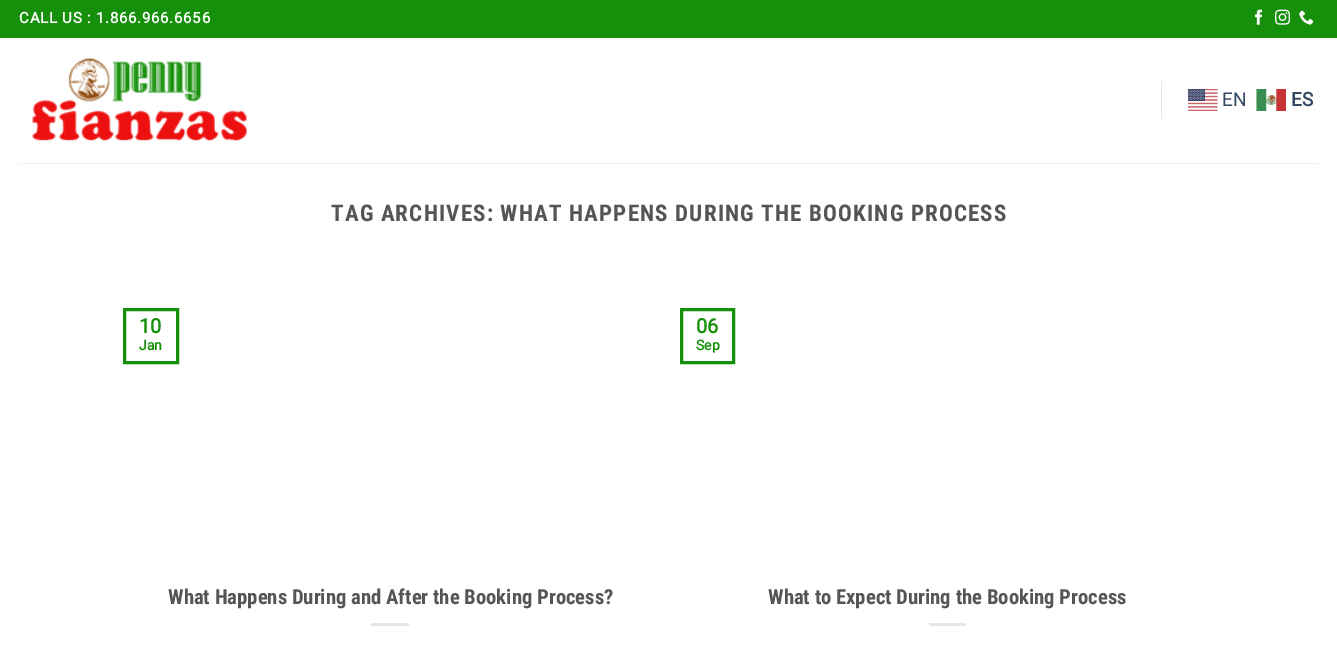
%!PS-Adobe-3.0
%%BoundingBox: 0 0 1337 647
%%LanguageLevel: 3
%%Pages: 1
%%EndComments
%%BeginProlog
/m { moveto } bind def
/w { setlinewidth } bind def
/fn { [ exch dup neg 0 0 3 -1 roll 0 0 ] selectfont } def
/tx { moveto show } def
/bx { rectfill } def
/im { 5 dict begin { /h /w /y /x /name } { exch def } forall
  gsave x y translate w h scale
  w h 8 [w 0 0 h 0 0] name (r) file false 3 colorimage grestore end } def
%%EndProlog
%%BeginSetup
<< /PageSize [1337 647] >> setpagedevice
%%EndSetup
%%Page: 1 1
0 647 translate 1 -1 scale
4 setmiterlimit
1 setgray
0 0 1337 647 bx
0.086 0.565 0.039 setrgbcolor
0 0 1337 38 bx
/Roboto-Bold 15 fn
1 setgray
19 23 m 0.75 0 (CALL US : 1.866.966.6656) ashow
(image0.raw) 1255 9 7 16 im
(image1.raw) 1275 9 15 16 im
(image2.raw) 1299 10 15 15 im
(image3.raw) 32 58 215 83 im
0.902 setgray
1161 81 1 38 bx
(image4.raw) 1188 89 30 22 im
/Roboto-Regular 19 fn
0.2 0.282 0.384 setrgbcolor
(EN) 1222 106 tx
(image5.raw) 1256 89 30 22 im
/Roboto-Bold 19 fn
(ES) 1291 106 tx
0.945 setgray
19 163 1300 1 bx
/RobotoCondensed-Bold 23 fn
0.333 setgray
331 221 m 1.15 0 (TAG ARCHIVES: WHAT HAPPENS DURING THE BOOKING PROCESS) ashow
0.086 0.565 0.039 setrgbcolor
3 w
124.5 309.5 53 53 rectstroke
/Roboto-Bold 20 fn
(10) 139 333 tx
/Roboto-Bold 14 fn
(Jan) 139 350 tx
/RobotoCondensed-Bold 20.7 fn
0.333 setgray
(What Happens During and After the Booking Process?) 168 604 tx
0.902 setgray
371 623 38 3 bx
0.086 0.565 0.039 setrgbcolor
681.5 309.5 52 53 rectstroke
/Roboto-Bold 20 fn
(06) 696 333 tx
/Roboto-Bold 14 fn
(Sep) 696 350 tx
/RobotoCondensed-Bold 20.7 fn
0.333 setgray
(What to Expect During the Booking Process) 768 604 tx
0.902 setgray
929 623 37 3 bx
showpage
%%EOF
